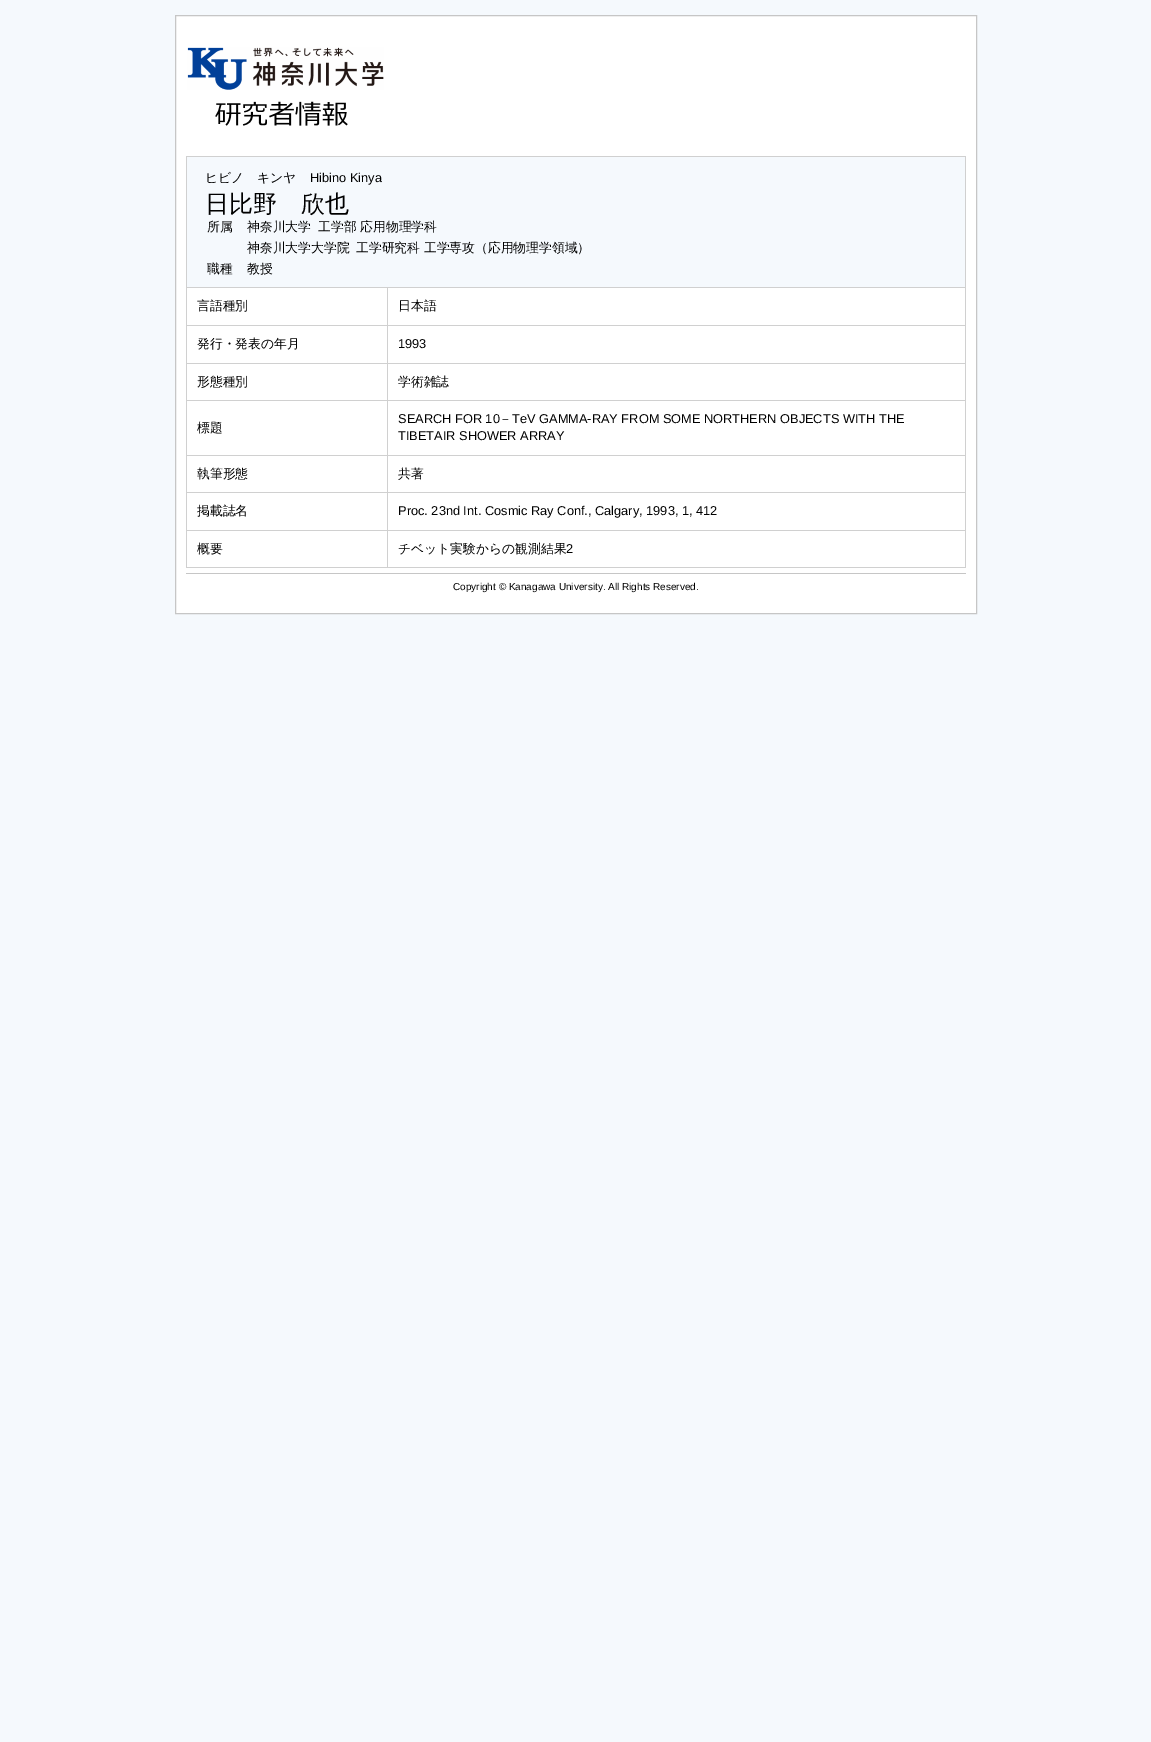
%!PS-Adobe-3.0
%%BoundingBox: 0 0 1151 1742
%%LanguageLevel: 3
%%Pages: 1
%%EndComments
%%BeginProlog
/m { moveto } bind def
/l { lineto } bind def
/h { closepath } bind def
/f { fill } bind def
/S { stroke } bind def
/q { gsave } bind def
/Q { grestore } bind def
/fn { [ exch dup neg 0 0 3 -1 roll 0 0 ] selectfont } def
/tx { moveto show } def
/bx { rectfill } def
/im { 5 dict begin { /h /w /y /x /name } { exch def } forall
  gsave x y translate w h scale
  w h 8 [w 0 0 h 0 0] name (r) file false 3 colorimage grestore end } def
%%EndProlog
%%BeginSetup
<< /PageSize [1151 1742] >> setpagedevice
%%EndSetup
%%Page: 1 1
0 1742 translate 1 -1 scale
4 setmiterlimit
0.961 0.976 0.992 setrgbcolor
0 0 1151 1742 bx
1 setgray
175.5 15.5 m 976.5 15.5 l 976.5 613.5 l 175.5 613.5 l h q f Q
0.776 setgray
S
(image0.raw) 187 47 197 43 im
(image1.raw) 215 101 133 25 im
0.816 setgray
186 156 780 412 bx
0.961 0.976 0.992 setrgbcolor
187 157 778 130 bx
/WenQuanYiZenHei-Medium 12.8 fn
0 setgray
(ヒビノ　キンヤ) 205 182 tx
/LiberationSans-Regular 12.8 fn
(Hibino Kinya) 310 182 tx
/WenQuanYiZenHei-Medium 24 fn
(日比野　欣也) 205 212 tx
/WenQuanYiZenHei-Medium 12.8 fn
(所属) 207 231 tx
(神奈川大学) 247 231 tx
(工学部 応用物理学科) 318 231 tx
(神奈川大学大学院) 247 252 tx
(工学研究科 工学専攻（応用物理学領域）) 356 252 tx
(職種) 207 273 tx
(教授) 247 273 tx
1 setgray
187 288 200 37 bx
0 setgray
(言語種別) 197 310 tx
1 setgray
388 288 577 37 bx
0 setgray
(日本語) 398 310 tx
1 setgray
187 326 200 37 bx
0 setgray
(発行・発表の年月) 197 348 tx
1 setgray
388 326 577 37 bx
/LiberationSans-Regular 12.8 fn
0 setgray
(1993) 398 348 tx
1 setgray
187 364 200 36 bx
/WenQuanYiZenHei-Medium 12.8 fn
0 setgray
(形態種別) 197 386 tx
1 setgray
388 364 577 36 bx
0 setgray
(学術雑誌) 398 386 tx
1 setgray
187 401 200 54 bx
0 setgray
(標題) 197 432 tx
1 setgray
388 401 577 54 bx
/LiberationSans-Regular 12.8 fn
0 setgray
(SEARCH FOR 10) 398 423 tx
/WenQuanYiZenHei-Medium 12.8 fn
(－) 499 423 tx
/LiberationSans-Regular 12.8 fn
(TeV GAMMA-RAY FROM SOME NORTHERN OBJECTS WITH THE) 512 423 tx
(TIBETAIR SHOWER ARRAY) 398 440 tx
1 setgray
187 456 200 36 bx
/WenQuanYiZenHei-Medium 12.8 fn
0 setgray
(執筆形態) 197 478 tx
1 setgray
388 456 577 36 bx
0 setgray
(共著) 398 478 tx
1 setgray
187 493 200 37 bx
0 setgray
(掲載誌名) 197 515 tx
1 setgray
388 493 577 37 bx
/LiberationSans-Regular 12.8 fn
0 setgray
(Proc. 23nd Int. Cosmic Ray Conf., Calgary, 1993, 1, 412) 398 515 tx
1 setgray
187 531 200 36 bx
/WenQuanYiZenHei-Medium 12.8 fn
0 setgray
(概要) 197 553 tx
1 setgray
388 531 577 36 bx
0 setgray
(チベット実験からの観測結果) 398 553 tx
/LiberationSans-Regular 12.8 fn
(2) 566 553 tx
0.776 setgray
186 573 780 1 bx
/LiberationSans-Regular 10 fn
0 setgray
(Copyright © Kanagawa University. All Rights Reserved.) 453 590 tx
showpage
%%EOF
